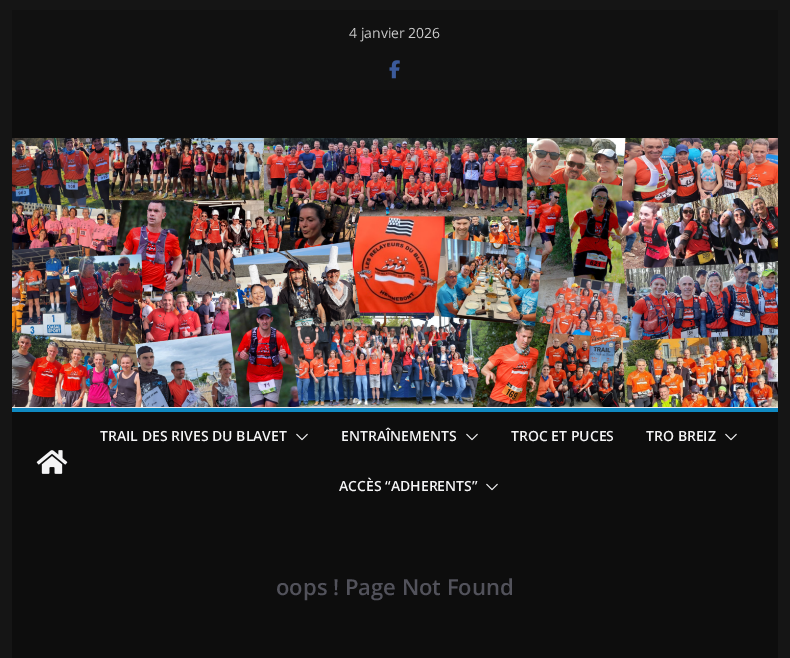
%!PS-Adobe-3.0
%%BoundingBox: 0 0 790 658
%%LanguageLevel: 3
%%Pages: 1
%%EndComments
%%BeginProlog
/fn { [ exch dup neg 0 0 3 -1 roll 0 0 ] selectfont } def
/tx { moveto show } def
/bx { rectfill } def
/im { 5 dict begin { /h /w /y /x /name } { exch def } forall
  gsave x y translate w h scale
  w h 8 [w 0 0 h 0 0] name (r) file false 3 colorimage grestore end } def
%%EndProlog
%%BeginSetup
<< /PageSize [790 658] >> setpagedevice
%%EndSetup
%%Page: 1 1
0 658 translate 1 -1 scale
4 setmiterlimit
0.082 setgray
0 0 790 658 bx
0.051 setgray
12 90 766 568 bx
0.067 setgray
12 10 766 80 bx
/OpenSans-Regular 14 fn
0.8 setgray
(4 janvier 2026) 349 38 tx
(image0.raw) 389 60 11 19 im
(image1.raw) 12 138 766 269 im
0.922 setgray
12 407 766 1 bx
0.059 0.537 0.757 setrgbcolor
12 408 766 4 bx
(image2.raw) 36 450 32 24 im
/OpenSans-SemiBold 14 fn
0.957 0.957 0.961 setrgbcolor
(TRAIL DES RIVES DU BLAVET) 100 441 tx
(image3.raw) 296 433 12 8 im
(ENTRAÎNEMENTS) 341 441 tx
(image3.raw) 466 433 12 8 im
(TROC ET PUCES) 511 441 tx
(TRO BREIZ) 646 441 tx
(image3.raw) 725 433 12 8 im
(ACCÈS “ADHERENTS”) 339 491 tx
(image3.raw) 486 483 12 8 im
/OpenSans-SemiBold 22 fn
0.322 0.322 0.357 setrgbcolor
(oops ! Page Not Found) 276 595 tx
showpage
%%EOF
